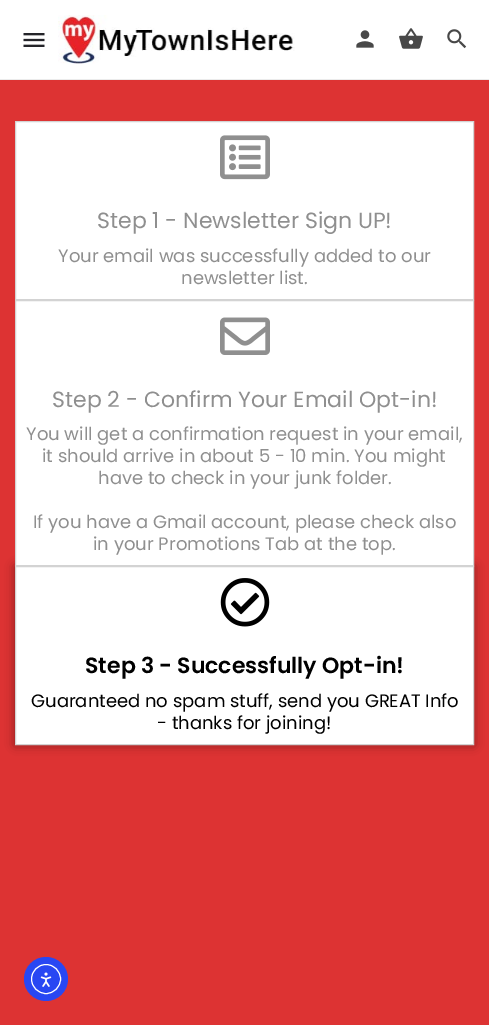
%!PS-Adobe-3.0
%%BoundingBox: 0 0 489 1025
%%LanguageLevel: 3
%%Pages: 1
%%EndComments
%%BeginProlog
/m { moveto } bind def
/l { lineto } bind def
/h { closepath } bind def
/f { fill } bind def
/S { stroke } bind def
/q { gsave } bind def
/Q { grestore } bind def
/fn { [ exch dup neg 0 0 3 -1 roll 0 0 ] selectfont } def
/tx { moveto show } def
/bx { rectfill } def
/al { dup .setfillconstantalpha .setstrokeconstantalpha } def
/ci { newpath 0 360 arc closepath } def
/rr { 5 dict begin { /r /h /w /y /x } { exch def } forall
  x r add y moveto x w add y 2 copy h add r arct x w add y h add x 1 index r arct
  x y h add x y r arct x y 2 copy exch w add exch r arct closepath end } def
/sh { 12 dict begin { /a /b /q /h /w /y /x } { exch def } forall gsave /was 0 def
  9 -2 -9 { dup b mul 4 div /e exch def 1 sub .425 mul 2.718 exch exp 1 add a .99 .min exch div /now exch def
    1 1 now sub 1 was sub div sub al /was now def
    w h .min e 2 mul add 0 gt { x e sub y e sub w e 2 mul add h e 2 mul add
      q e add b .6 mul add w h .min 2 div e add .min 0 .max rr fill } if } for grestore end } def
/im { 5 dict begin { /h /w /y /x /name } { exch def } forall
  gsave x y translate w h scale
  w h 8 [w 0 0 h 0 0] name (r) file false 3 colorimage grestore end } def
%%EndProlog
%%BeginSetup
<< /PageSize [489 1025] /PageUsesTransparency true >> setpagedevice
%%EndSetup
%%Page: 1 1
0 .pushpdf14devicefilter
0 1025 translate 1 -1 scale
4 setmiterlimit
0.867 0.2 0.2 setrgbcolor
0 0 489 1025 bx
1 setgray
0 0 489 79 bx
0.922 setgray
0 79 489 1 bx
(image0.raw) 23 33 22 14 im
(image1.raw) 58 15 237 49 im
(image2.raw) 356 30 18 18 im
(image3.raw) 399 28 24 21 im
(image4.raw) 447 29 20 20 im
1 setgray
15.5 121.5 m 473.5 121.5 l 473.5 299.5 l 15.5 299.5 l h q f Q
0.827 setgray
S
(image5.raw) 220 135 50 45 im
/Poppins-Regular 22 fn
0.561 setgray
(Step 1 - Newsletter Sign UP!) 97 228 tx
/Poppins-Regular 18 fn
(Your email was successfully added to our) 58 262 tx
(newsletter list.) 181 284 tx
0 setgray
15 566 459 179 0 5 0.4 sh
1 setgray
15.5 300.5 m 473.5 300.5 l 473.5 565.5 l 15.5 565.5 l h q f Q
0.827 setgray
S
(image6.raw) 220 317 50 38 im
/Poppins-Regular 22 fn
0.561 setgray
(Step 2 - Confirm Your Email Opt-in!) 52 407 tx
/Poppins-Regular 18 fn
(You will get a confirmation request in your email,) 26 440 tx
(it should arrive in about 5 - 10 min. You might) 42 462 tx
(have to check in your junk folder.) 98 484 tx
(If you have a Gmail account, please check also) 33 528 tx
(in your Promotions Tab at the top.) 93 550 tx
1 setgray
15.5 566.5 m 473.5 566.5 l 473.5 744.5 l 15.5 744.5 l h q f Q
0.827 setgray
S
(image7.raw) 220 578 50 49 im
/Poppins-SemiBold 22 fn
0 setgray
(Step 3 - Successfully Opt-in!) 85 673 tx
/Poppins-Regular 18 fn
(Guaranteed no spam stuff, send you GREAT Info) 31 707 tx
(- thanks for joining!) 157 729 tx
0.157 0.278 0.953 setrgbcolor
46 979 22 ci f
1 setgray
46 979 14.5 ci S
(image8.raw) 40 972 12 15 im
.poppdf14devicefilter showpage
%%EOF
